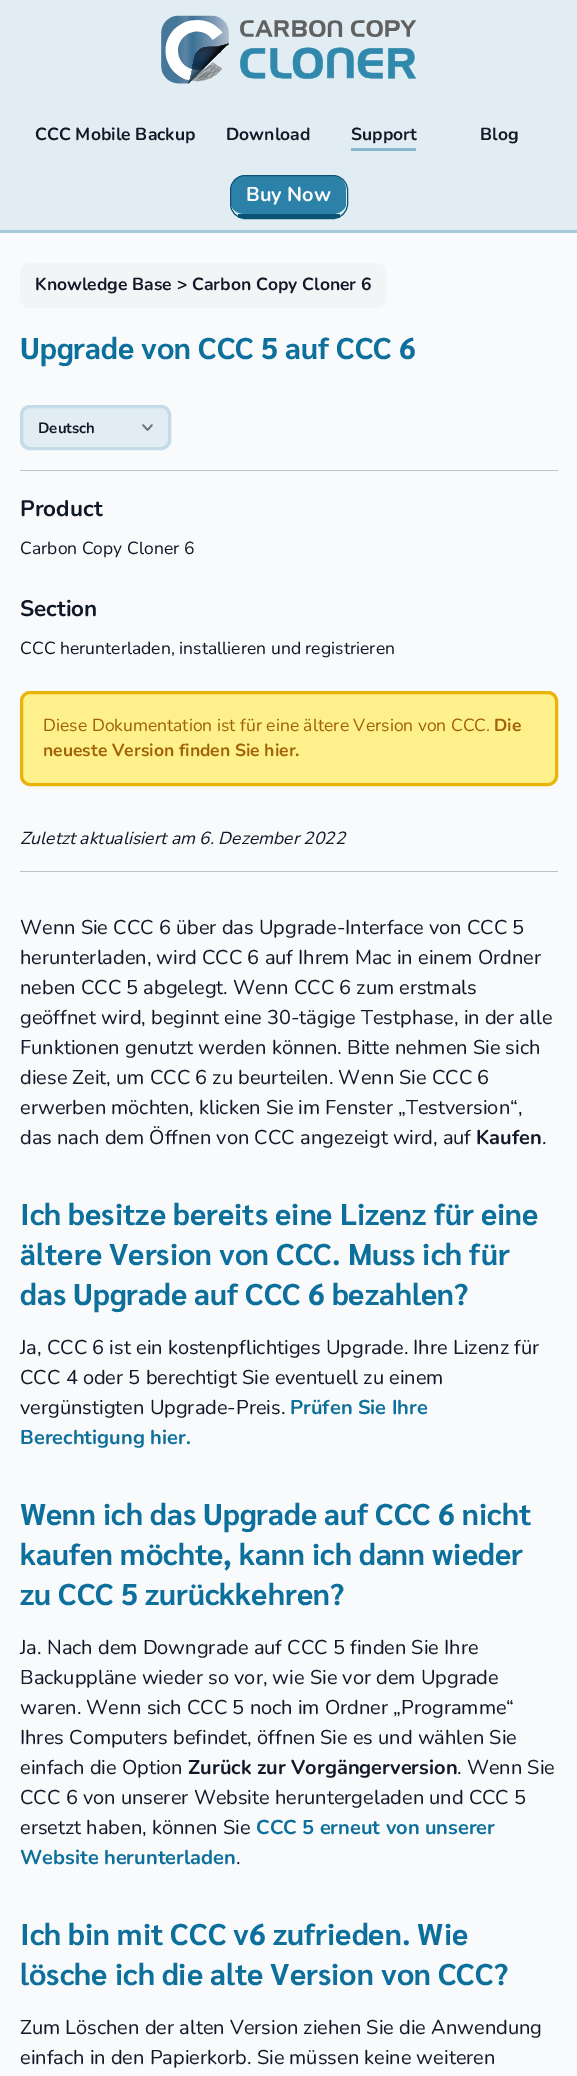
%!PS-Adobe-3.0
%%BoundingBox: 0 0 577 2076
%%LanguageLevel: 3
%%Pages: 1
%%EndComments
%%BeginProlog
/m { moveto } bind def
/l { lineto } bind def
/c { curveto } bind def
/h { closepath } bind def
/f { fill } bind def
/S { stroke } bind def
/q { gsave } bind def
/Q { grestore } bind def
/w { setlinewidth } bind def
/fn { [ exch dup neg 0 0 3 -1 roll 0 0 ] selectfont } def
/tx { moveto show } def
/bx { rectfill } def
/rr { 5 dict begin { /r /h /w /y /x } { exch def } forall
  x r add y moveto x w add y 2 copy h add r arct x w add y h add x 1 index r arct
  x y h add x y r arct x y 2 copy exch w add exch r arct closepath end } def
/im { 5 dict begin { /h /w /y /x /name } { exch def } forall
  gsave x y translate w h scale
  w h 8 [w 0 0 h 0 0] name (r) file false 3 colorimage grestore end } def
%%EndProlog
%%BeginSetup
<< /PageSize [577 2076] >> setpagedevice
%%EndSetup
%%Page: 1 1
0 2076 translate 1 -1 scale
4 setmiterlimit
0.976 0.98 0.984 setrgbcolor
0 0 577 2076 bx
0.882 0.929 0.953 setrgbcolor
0 0 577 230 bx
0.643 0.788 0.855 setrgbcolor
0 230 577 3 bx
(image0.raw) 161 15 256 69 im
/Nunito-Bold 17.5 fn
0.067 0.094 0.153 setrgbcolor
(CCC Mobile Backup) 35 140 tx
(Download) 226 140 tx
0.525 0.718 0.804 setrgbcolor
351 148 65 3 bx
0.067 0.094 0.153 setrgbcolor
(Support) 351 140 tx
(Blog) 480 140 tx
0.169 0.506 0.659 setrgbcolor
245 176 m 332 176 l 340 176 346 182 346 190 c 346 204 l 346 209 340 214 332 214 c 245 214 l 237 214 231 209 231 204 c 231 190 l 231 182 237 176 245 176 c h f
0.039 0.325 0.455 setrgbcolor
230.5 175.5 117 43 14.5 rr S
/Nunito-Bold 20 fn
0.976 0.98 0.984 setrgbcolor
(Buy Now) 246 201 tx
0.039 0.325 0.455 setrgbcolor
238 214 102 4 bx
0.953 0.957 0.965 setrgbcolor
20 263 366 45 10 rr f
/Nunito-Bold 17.5 fn
0.067 0.094 0.153 setrgbcolor
(Knowledge Base > Carbon Copy Cloner 6) 35 290 tx
/Sarabun-Bold 30 fn
0.051 0.435 0.608 setrgbcolor
(Upgrade von CCC 5 auf CCC 6) 20 359 tx
0.882 0.929 0.953 setrgbcolor
20 405 151 45 10 rr f
0.42 0.447 0.502 setrgbcolor
1.7 w
1 setlinecap
1 setlinejoin
143 425 m 147.5 430 l 152 425 l S
0.765 0.859 0.902 setrgbcolor
3 w
0 setlinecap
0 setlinejoin
21.5 406.5 148 42 8.5 rr S
/Nunito-Bold 15 fn
0.067 0.094 0.153 setrgbcolor
(Deutsch) 38 433 tx
0.745 0.749 0.749 setrgbcolor
20 470 538 1 bx
20 871 538 1 bx
/Nunito-Bold 22.5 fn
0.067 0.094 0.153 setrgbcolor
(Product) 20 516 tx
/Nunito-Regular 17.5 fn
(Carbon Copy Cloner 6) 20 554 tx
/Nunito-Bold 22.5 fn
(Section) 20 616 tx
/Nunito-Regular 17.5 fn
(CCC herunterladen, installieren und registrieren) 20 654 tx
0.996 0.941 0.541 setrgbcolor
21.5 692.5 535 92 8.5 rr q f Q
0.918 0.702 0.031 setrgbcolor
S
0.631 0.384 0.027 setrgbcolor
(Diese Dokumentation ist für eine ältere Version von CCC.) 43 731 tx
/Nunito-Bold 17.5 fn
(Die) 494 731 tx
(neueste Version finden Sie hier.) 43 756 tx
/Nunito-Italic 17.5 fn
0.067 0.094 0.153 setrgbcolor
(Zuletzt aktualisiert am 6. Dezember 2022) 20 844 tx
/Nunito-Regular 20 fn
(Wenn Sie CCC 6 über das Upgrade-Interface von CCC 5) 20 934 tx
(herunterladen, wird CCC 6 auf Ihrem Mac in einem Ordner) 20 964 tx
(neben CCC 5 abgelegt. Wenn CCC 6 zum erstmals) 20 994 tx
(geöffnet wird, beginnt eine 30-tägige Testphase, in der alle) 20 1024 tx
(Funktionen genutzt werden können. Bitte nehmen Sie sich) 20 1054 tx
(diese Zeit, um CCC 6 zu beurteilen. Wenn Sie CCC 6) 20 1084 tx
(erwerben möchten, klicken Sie im Fenster „Testversion“,) 20 1114 tx
(das nach dem Öffnen von CCC angezeigt wird, auf) 20 1144 tx
/Nunito-Bold 20 fn
(Kaufen) 476 1144 tx
/Nunito-Regular 20 fn
(.) 542 1144 tx
/Sarabun-Bold 30 fn
0.051 0.435 0.608 setrgbcolor
(Ich besitze bereits eine Lizenz für eine) 20 1225 tx
(ältere Version von CCC. Muss ich für) 20 1265 tx
(das Upgrade auf CCC 6 bezahlen?) 20 1305 tx
/Nunito-Regular 20 fn
0.067 0.094 0.153 setrgbcolor
(Ja, CCC 6 ist ein kostenpflichtiges Upgrade. Ihre Lizenz für) 20 1354 tx
(CCC 4 oder 5 berechtigt Sie eventuell zu einem) 20 1384 tx
(vergünstigten Upgrade-Preis.) 20 1414 tx
/Nunito-Bold 20 fn
0.051 0.435 0.608 setrgbcolor
(Prüfen Sie Ihre) 290 1414 tx
(Berechtigung hier.) 20 1444 tx
/Sarabun-Bold 30 fn
(Wenn ich das Upgrade auf CCC 6 nicht) 20 1525 tx
(kaufen möchte, kann ich dann wieder) 20 1565 tx
(zu CCC 5 zurückkehren?) 20 1605 tx
/Nunito-Regular 20 fn
0.067 0.094 0.153 setrgbcolor
(Ja. Nach dem Downgrade auf CCC 5 finden Sie Ihre) 20 1654 tx
(Backuppläne wieder so vor, wie Sie vor dem Upgrade) 20 1684 tx
(waren. Wenn sich CCC 5 noch im Ordner „Programme“) 20 1714 tx
(Ihres Computers befindet, öffnen Sie es und wählen Sie) 20 1744 tx
(einfach die Option) 20 1774 tx
/Nunito-Bold 20 fn
(Zurück zur Vorgängerversion) 188 1774 tx
/Nunito-Regular 20 fn
(. Wenn Sie) 457 1774 tx
(CCC 6 von unserer Website heruntergeladen und CCC 5) 20 1804 tx
(ersetzt haben, können Sie) 20 1834 tx
/Nunito-Bold 20 fn
0.051 0.435 0.608 setrgbcolor
(CCC 5 erneut von unserer) 256 1834 tx
(Website herunterladen) 20 1864 tx
/Nunito-Regular 20 fn
0.067 0.094 0.153 setrgbcolor
(.) 236 1864 tx
/Sarabun-Bold 30 fn
0.051 0.435 0.608 setrgbcolor
(Ich bin mit CCC v6 zufrieden. Wie) 20 1945 tx
(lösche ich die alte Version von CCC?) 20 1985 tx
/Nunito-Regular 20 fn
0.067 0.094 0.153 setrgbcolor
(Zum Löschen der alten Version ziehen Sie die Anwendung) 20 2034 tx
(einfach in den Papierkorb. Sie müssen keine weiteren) 20 2064 tx
showpage
%%EOF
